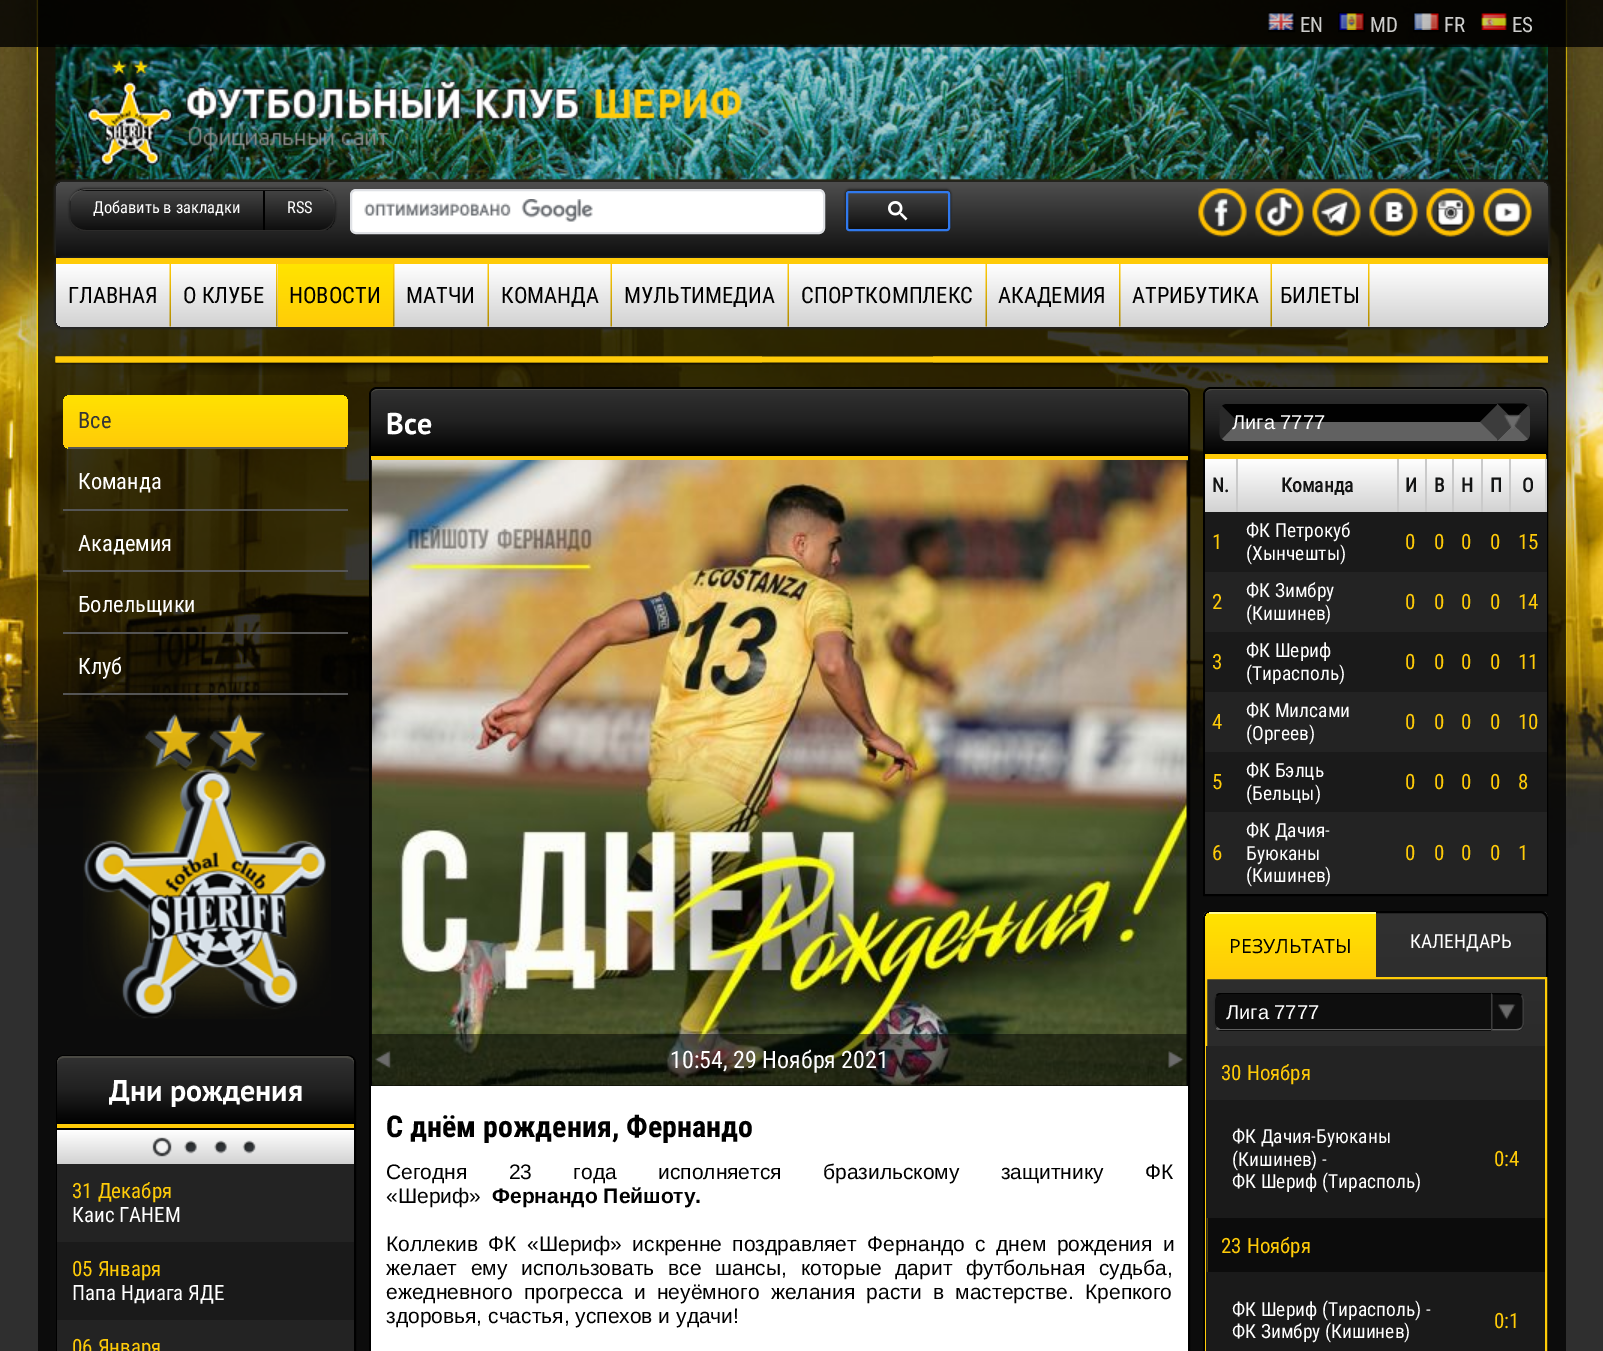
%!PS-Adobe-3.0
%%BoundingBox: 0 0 1603 1351
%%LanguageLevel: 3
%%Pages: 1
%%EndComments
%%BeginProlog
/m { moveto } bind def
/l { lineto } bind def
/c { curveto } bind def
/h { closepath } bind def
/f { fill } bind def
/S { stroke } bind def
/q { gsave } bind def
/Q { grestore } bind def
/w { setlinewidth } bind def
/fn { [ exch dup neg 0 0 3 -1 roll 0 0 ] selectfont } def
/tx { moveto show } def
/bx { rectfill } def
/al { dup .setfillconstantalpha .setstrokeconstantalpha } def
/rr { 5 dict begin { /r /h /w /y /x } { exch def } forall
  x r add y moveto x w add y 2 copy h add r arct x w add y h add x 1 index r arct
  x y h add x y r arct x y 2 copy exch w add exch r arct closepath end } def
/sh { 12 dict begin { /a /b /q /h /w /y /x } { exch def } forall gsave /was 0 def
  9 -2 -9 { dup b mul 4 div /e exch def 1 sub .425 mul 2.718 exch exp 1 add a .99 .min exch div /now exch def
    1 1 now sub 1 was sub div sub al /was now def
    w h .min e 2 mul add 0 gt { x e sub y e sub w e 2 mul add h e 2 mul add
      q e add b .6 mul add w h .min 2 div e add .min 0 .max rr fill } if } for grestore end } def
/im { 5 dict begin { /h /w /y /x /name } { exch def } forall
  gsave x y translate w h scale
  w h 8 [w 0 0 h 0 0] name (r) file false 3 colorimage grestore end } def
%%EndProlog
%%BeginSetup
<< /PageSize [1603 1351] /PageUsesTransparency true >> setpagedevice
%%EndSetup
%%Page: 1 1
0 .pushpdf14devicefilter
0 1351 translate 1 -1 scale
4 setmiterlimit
0.184 setgray
0 0 1603 1351 bx
(image0.raw) 0 0 1603 848 im
0.75 al
0 setgray
38 0 1528 1351 bx
1 al
(image5.raw) 55 44 1493 136 im
0.8 al
0 0 1603 47 bx
1 al
0.004 0.004 0 setrgbcolor
2 w
1269 13 25 18 rectstroke
(image1.raw) 1268 13 26 17 im
/RobotoCondensed-Regular 21 fn
0.804 0.804 0.8 setrgbcolor
(EN) 1300 32 tx
0.004 0.004 0 setrgbcolor
1339 13 25 18 rectstroke
(image2.raw) 1339 13 25 17 im
0.804 0.804 0.8 setrgbcolor
(MD) 1370 32 tx
0.004 0.004 0 setrgbcolor
1414 13 25 18 rectstroke
(image3.raw) 1414 13 25 17 im
0.804 0.804 0.8 setrgbcolor
(FR) 1444 32 tx
(image4.raw) 1481 13 26 17 im
(ES) 1512 32 tx
(image6.raw) 86 58 656 109 im
0.133 setgray
54 180 1496 80 9 1 1 sh
q 64 182 m 1540 182 l 1544.5 182 1548 185.5 1548 190 c 1548 258 l 56 258 l 56 190 l 56 185.5 59.5 182 64 182 c h clip newpath
<< /ShadingType 2 /ColorSpace /DeviceRGB /Coords [802 181 802 258] /Extend [true true] /Function << /FunctionType 2 /Domain [0 1] /C0 [0.31 0.31 0.31] /C1 [0.055 0.055 0.055] /N 1 >> >> shfill Q
69 188 267 45 17 1 1 sh
q
71 189 264 42 15 rr clip newpath
q 71 189 m 335 189 l 335 191 l 71 191 l h clip newpath
<< /ShadingType 2 /ColorSpace /DeviceRGB /Coords [203 151 203 191] /Extend [true true] /Function << /FunctionType 2 /Domain [0 1] /C0 [0.267 0.267 0.267] /C1 [0.055 0.055 0.055] /N 1 >> >> shfill Q
q 71 191 m 335 191 l 335 230 l 71 230 l h clip newpath
<< /ShadingType 2 /ColorSpace /DeviceRGB /Coords [203 190 203 230] /Extend [true true] /Function << /FunctionType 2 /Domain [0 1] /C0 [0.267 0.267 0.267] /C1 [0.055 0.055 0.055] /N 1 >> >> shfill Q
Q
0.302 0.302 0.298 setrgbcolor
86 189 m 80 189 70 194 70 201 c 72 195 78 190 86 190 c 320 190 l 328 190 334 197 334 204 c 334 196 328 189 320 189 c h f
0.173 0.169 0.165 setrgbcolor
320 231 m 328 231 334 224 334 216 c 334 223 328 230 320 230 c 86 230 l 78 230 72 225 70 219 c 70 220 l 72 226 78 231 86 231 c h f
/RobotoCondensed-Regular 16.5 fn
1 setgray
(Добавить в закладки) 93 213 tx
0 setgray
263 191 2 39 bx
1 setgray
(RSS) 287 213 tx
351 190 473 43 5 rr q f Q
0.875 0.882 0.898 setrgbcolor
S
(image7.raw) 364 199 229 23 im
0.133 setgray
845 189 106 44 5 1 1 sh
q
846 191 104 40 3 rr clip newpath
q 846 192 m 950 192 l 950 230 l 846 230 l h clip newpath
<< /ShadingType 2 /ColorSpace /DeviceRGB /Coords [898 192 898 230] /Extend [true true] /Function << /FunctionType 2 /Domain [0 1] /C0 [0.267 0.267 0.267] /C1 [0.055 0.055 0.055] /N 1 >> >> shfill Q
Q
0.188 0.475 0.929 setrgbcolor
847 192 102 38 2 rr S
(image8.raw) 888 201 20 20 im
(image9.raw) 1198 188 49 49 im
(image10.raw) 1255 188 49 49 im
(image11.raw) 1312 188 49 49 im
(image12.raw) 1369 188 49 49 im
(image13.raw) 1426 188 49 49 im
(image14.raw) 1483 188 49 49 im
0.133 setgray
54 257 1496 72 9 1 1 sh
q 56 264 m 1548 264 l 1548 319 l 1548 323.5 1544.5 327 1540 327 c 64 327 l 59.5 327 56 323.5 56 319 c h clip newpath
<< /ShadingType 2 /ColorSpace /DeviceRGB /Coords [802 264 802 327] /Extend [true true] /Function << /FunctionType 2 /Domain [0 1] /C0 [1 1 1] /C1 [0.824 0.824 0.824] /N 1 >> >> shfill Q
1 0.796 0.031 setrgbcolor
56 258 1492 6 bx
(image15.raw) 169 264 2 63 im
/RobotoCondensed-Regular 22.5 fn
0 setgray
(ГЛАВНАЯ) 68 303 tx
(image16.raw) 276 264 2 63 im
(О КЛУБЕ) 183 303 tx
(image16.raw) 393 264 2 63 im
q 278 264 m 393 264 l 393 327 l 278 327 l h clip newpath
<< /ShadingType 2 /ColorSpace /DeviceRGB /Coords [335 264 335 327] /Extend [true true] /Function << /FunctionType 2 /Domain [0 1] /C0 [1 0.894 0] /C1 [1 0.8 0.031] /N 1 >> >> shfill Q
(НОВОСТИ) 289 303 tx
(image15.raw) 487 264 2 63 im
(МАТЧИ) 406 303 tx
(image15.raw) 610 264 2 63 im
(КОМАНДА) 501 303 tx
(image15.raw) 787 264 2 63 im
(МУЛЬТИМЕДИА) 624 303 tx
(image15.raw) 985 264 2 63 im
(СПОРТКОМПЛЕКС) 801 303 tx
(image16.raw) 1119 264 2 63 im
(АКАДЕМИЯ) 998 303 tx
(image15.raw) 1270 264 2 63 im
(АТРИБУТИКА) 1132 303 tx
(image16.raw) 1368 264 2 63 im
(БИЛЕТЫ) 1280 303 tx
(image17.raw) 55 356 1493 9 im
(image18.raw) 55 356 707 19 im
(image19.raw) 933 356 615 19 im
(image20.raw) 83 713 248 306 im
q
63 395 285 54 8 rr clip newpath
q 71 395 m 340 395 l 344.5 395 348 398.5 348 403 c 348 447 l 63 447 l 63 403 l 63 398.5 66.5 395 71 395 c h clip newpath
<< /ShadingType 2 /ColorSpace /DeviceRGB /Coords [206 395 206 447] /Extend [true true] /Function << /FunctionType 2 /Domain [0 1] /C0 [1 0.886 0.004] /C1 [1 0.796 0.031] /N 1 >> >> shfill Q
q 63 447 m 68 447 l 68 449 l 63 449 l h clip newpath
<< /ShadingType 2 /ColorSpace /DeviceRGB /Coords [206 447 206 500] /Extend [true true] /Function << /FunctionType 2 /Domain [0 1] /C0 [1 0.886 0.004] /C1 [1 0.796 0.031] /N 1 >> >> shfill Q
Q
0.333 setgray
68 447 277 2 bx
0.208 0.212 0.212 setrgbcolor
(Все) 78 428 tx
0.333 setgray
63 509 285 2 bx
1 setgray
(Команда) 78 489 tx
0.333 setgray
63 570 285 2 bx
1 setgray
(Академия) 78 551 tx
0.333 setgray
63 632 285 2 bx
1 setgray
(Болельщики) 78 612 tx
0.333 setgray
63 693 285 2 bx
1 setgray
(Клуб) 78 674 tx
0 setgray
64 1056 m 348 1056 l 352 1056 355 1059 355 1063 c 355 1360 l 57 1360 l 57 1063 l 57 1059 60 1056 64 1056 c h S
q
65 1056 m 346 1056 l 350.5 1056 354 1059.5 354 1064 c 354 1128 l 57 1128 l 57 1064 l 57 1059.5 60.5 1056 65 1056 c h clip newpath
q 57 1058 m 354 1058 l 354 1124 l 57 1124 l h clip newpath
<< /ShadingType 2 /ColorSpace /DeviceRGB /Coords [206 1058 206 1124] /Extend [true true] /Function << /FunctionType 3 /Domain [0 1] /Functions [<< /FunctionType 2 /Domain [0 1] /C0 [0.192 0.192 0.192] /C1 [0.129 0.129 0.129] /N 1 >> << /FunctionType 2 /Domain [0 1] /C0 [0.129 0.129 0.129] /C1 [0 0 0] /N 1 >>] /Bounds [0.47] /Encode [0 1 0 1] >> >> shfill Q
Q
0.29 0.286 0.263 setrgbcolor
64 1056 m 346 1056 l 351 1056 354 1059 354 1064 c 354 1060 351 1058 346 1058 c 64 1058 l 60 1058 57 1060 57 1064 c 57 1059 60 1056 64 1056 c h f
1 0.796 0.031 setrgbcolor
57 1124 297 4 bx
/PTSans-Bold 30 fn
1 setgray
(Дни рождения) 109 1101 tx
q 57 1130 m 354 1130 l 354 1164 l 57 1164 l h clip newpath
<< /ShadingType 2 /ColorSpace /DeviceRGB /Coords [206 1130 206 1164] /Extend [true true] /Function << /FunctionType 2 /Domain [0 1] /C0 [1 1 1] /C1 [0.824 0.824 0.824] /N 1 >> >> shfill Q
0 setgray
57 1128 297 2 bx
(image21.raw) 152 1137 20 20 im
(image22.raw) 184 1140 13 14 im
(image22.raw) 214 1140 13 14 im
(image23.raw) 242 1140 14 14 im
0.137 setgray
57 1164 297 78 bx
/RobotoCondensed-Regular 21 fn
1 0.796 0.031 setrgbcolor
(31 Декабря) 72 1198 tx
1 setgray
(Каис ГАНЕМ) 72 1222 tx
0.102 setgray
57 1242 297 78 bx
1 0.796 0.031 setrgbcolor
(05 Января) 72 1276 tx
1 setgray
(Папа Ндиага ЯДЕ) 72 1300 tx
0.137 setgray
57 1320 297 31 bx
1 0.796 0.031 setrgbcolor
(06 Января) 72 1354 tx
0.3 al
0 setgray
377 388 m 1182 388 l 1186 388 1189 391 1189 395 c 1189 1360 l 370 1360 l 370 395 l 370 391 373 388 377 388 c h f
1 al
377 388 m 1182 388 l 1186 388 1189 391 1189 395 c 1189 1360 l 370 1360 l 370 395 l 370 391 373 388 377 388 c h S
q
379 389 m 1180 389 l 1184.5 389 1188 392.5 1188 397 c 1188 461 l 371 461 l 371 397 l 371 392.5 374.5 389 379 389 c h clip newpath
q 371 390 m 1188 390 l 1188 456 l 371 456 l h clip newpath
<< /ShadingType 2 /ColorSpace /DeviceRGB /Coords [779 390 779 456] /Extend [true true] /Function << /FunctionType 3 /Domain [0 1] /Functions [<< /FunctionType 2 /Domain [0 1] /C0 [0.192 0.192 0.192] /C1 [0.129 0.129 0.129] /N 1 >> << /FunctionType 2 /Domain [0 1] /C0 [0.129 0.129 0.129] /C1 [0 0 0] /N 1 >>] /Bounds [0.47] /Encode [0 1 0 1] >> >> shfill Q
Q
q 371 460 m 1188 460 l 1188 461 l 371 461 l h clip newpath
<< /ShadingType 2 /ColorSpace /DeviceRGB /Coords [779 456 779 522] /Extend [true true] /Function << /FunctionType 3 /Domain [0 1] /Functions [<< /FunctionType 2 /Domain [0 1] /C0 [0.192 0.192 0.192] /C1 [0.129 0.129 0.129] /N 1 >> << /FunctionType 2 /Domain [0 1] /C0 [0.129 0.129 0.129] /C1 [0 0 0] /N 1 >>] /Bounds [0.47] /Encode [0 1 0 1] >> >> shfill Q
0.29 0.286 0.263 setrgbcolor
378 390 m 1180 390 l 1185 390 1188 393 1188 396 c 1188 392 1186 389 1182 389 c 377 389 l 375 389 372 391 371 393 c 373 391 375 390 378 390 c h f
1 0.796 0.031 setrgbcolor
371 456 817 4 bx
/PTSans-Bold 30 fn
1 setgray
(Все) 386 434 tx
(image24.raw) 372 460 815 626 im
0.5 al
0 setgray
371 1034 817 52 bx
1 al
(image25.raw) 375 1051 16 17 im
/RobotoCondensed-Regular 24 fn
1 setgray
(10:54, 29 Ноября 2021) 670 1068 tx
(image26.raw) 1168 1051 16 17 im
371 1086 817 265 bx
/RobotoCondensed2-Bold 30 fn
0 setgray
(С днём рождения, Фернандо) 386 1137 tx
/LiberationSans-Regular 21 fn
386 1179 m 35.5 0 32 (Сегодня 23 года исполняется бразильскому защитнику ФК) widthshow
(«Шериф») 386 1203 tx
/LiberationSans-Bold 21 fn
(Фернандо Пейшоту.) 492 1203 tx
/LiberationSans-Regular 21 fn
386 1251 m 4.5 0 32 (Коллекив ФК «Шериф» искренне поздравляет Фeрнандо с днем рождения и) widthshow
386 1275 m 8 0 32 (желает ему использовать все шансы, которые дарит футбольная судьба,) widthshow
386 1299 m 5.5 0 32 (ежедневного прогресса и неуёмного желания расти в мастерстве. Крепкого) widthshow
(здоровья, счастья, успехов и удачи!) 386 1323 tx
0.3 al
1211 388 m 1540 388 l 1544 388 1547 391 1547 395 c 1547 895 l 1204 895 l 1204 395 l 1204 391 1207 388 1211 388 c h f
1 al
1211 388 m 1540 388 l 1544 388 1547 391 1547 395 c 1547 895 l 1204 895 l 1204 395 l 1204 391 1207 388 1211 388 c h S
q
1213 389 m 1539 389 l 1543.5 389 1547 392.5 1547 397 c 1547 459 l 1205 459 l 1205 397 l 1205 392.5 1208.5 389 1213 389 c h clip newpath
q 1205 390 m 1547 390 l 1547 455 l 1205 455 l h clip newpath
<< /ShadingType 2 /ColorSpace /DeviceRGB /Coords [1376 390 1376 455] /Extend [true true] /Function << /FunctionType 3 /Domain [0 1] /Functions [<< /FunctionType 2 /Domain [0 1] /C0 [0.192 0.192 0.192] /C1 [0.129 0.129 0.129] /N 1 >> << /FunctionType 2 /Domain [0 1] /C0 [0.129 0.129 0.129] /C1 [0 0 0] /N 1 >>] /Bounds [0.47] /Encode [0 1 0 1] >> >> shfill Q
Q
q 1546 455 m 1547 455 l 1547 459 l 1546 459 l h clip newpath
<< /ShadingType 2 /ColorSpace /DeviceRGB /Coords [1376 455 1376 519] /Extend [true true] /Function << /FunctionType 3 /Domain [0 1] /Functions [<< /FunctionType 2 /Domain [0 1] /C0 [0.192 0.192 0.192] /C1 [0.129 0.129 0.129] /N 1 >> << /FunctionType 2 /Domain [0 1] /C0 [0.129 0.129 0.129] /C1 [0 0 0] /N 1 >>] /Bounds [0.47] /Encode [0 1 0 1] >> >> shfill Q
0.29 0.286 0.263 setrgbcolor
1212 390 m 1209 390 1207 391 1205 393 c 1208 390 l 1210 389 l 1541 389 l 1544 389 1546 393 1546 396 c 1546 393 1543 390 1539 390 c h f
1 0.796 0.031 setrgbcolor
1205 454 341 5 bx
0.055 setgray
1228 404 m 1499 404 l 1499 441 l 1228 441 l 1223.5 441 1220 437.5 1220 433 c 1220 412 l 1220 407.5 1223.5 404 1228 404 c h f
0.004 setgray
1227 404 m 1225 404 1223 405 1222 406 c 1238 422 l 1480 422 l 1498 404 l h f
0.235 setgray
1498 440.5 m 1498 404 l 1480 422 l h f
0.38 setgray
1498 440 m 1480 422 l 1238 422 l 1222 439 l 1225 441 l 1498 441 l h f
0.161 setgray
1219.5 429.5 m 1220 421.5 l 1219.5 411.5 l 1220 409.5 1220.5 407.5 1222 406 c 1238 422 l 1221.5 439 l 1219.5 436.5 1219.5 432.5 1219.5 429.5 c h f
/LiberationSans-Regular 20 fn
1 setgray
(Лига 7777) 1232 429 tx
0.004 setgray
1497 403.5 m 1522.5 403.5 l 1524.5 403.5 1526.5 404.5 1528 406 c 1513.5 420 l h f
0.235 setgray
1528 406 m 1513.5 420 l 1513.5 424.5 l 1528 439 l 1529 437.5 1530 435.5 1530 433.5 c 1530 411 l 1530 409 1529 407 1528 406 c h f
0.38 setgray
1528 439 m 1513.5 424.5 l 1497 441 l 1522.5 441 l 1524.5 441 1526.5 440 1528 439 c h f
0.235 setgray
1497 403.5 m 1513.5 420 l 1513.5 424.5 l 1497 441 l h f
(image27.raw) 1504 414 17 15 im
q 1205 459 m 1545 459 l 1545 512 l 1205 512 l h clip newpath
<< /ShadingType 2 /ColorSpace /DeviceRGB /Coords [1376 459 1376 512] /Extend [true true] /Function << /FunctionType 2 /Domain [0 1] /C0 [1 1 1] /C1 [0.824 0.824 0.824] /N 1 >> >> shfill Q
0.792 setgray
1236 459 2 53 bx
/RobotoCondensed-Bold 19.5 fn
0.075 0.078 0.078 setrgbcolor
(N.) 1212 492 tx
0.792 setgray
1397 459 2 53 bx
0.075 0.078 0.078 setrgbcolor
(Команда) 1281 492 tx
0.792 setgray
1425 459 2 53 bx
0.075 0.078 0.078 setrgbcolor
(И) 1405 492 tx
0.792 setgray
1452 459 2 53 bx
0.075 0.078 0.078 setrgbcolor
(В) 1434 492 tx
0.792 setgray
1481 459 2 53 bx
0.075 0.078 0.078 setrgbcolor
(Н) 1461 492 tx
0.792 setgray
1509 459 2 53 bx
0.075 0.078 0.078 setrgbcolor
(П) 1490 492 tx
0.792 setgray
1545 459 2 53 bx
0.075 0.078 0.078 setrgbcolor
(О) 1522 492 tx
0.102 setgray
1205 512 342 60 bx
/RobotoCondensed-Regular 21 fn
1 0.796 0.031 setrgbcolor
(1) 1212 549 tx
/RobotoCondensed-Regular 19.5 fn
1 setgray
(ФК Петрокуб) 1246 537 tx
(\(Хынчешты\)) 1246 560 tx
/RobotoCondensed-Regular 21 fn
1 0.796 0.031 setrgbcolor
(0) 1405 549 tx
(0) 1434 549 tx
(0) 1461 549 tx
(0) 1490 549 tx
(15) 1518 549 tx
0.137 setgray
1205 572 342 60 bx
1 0.796 0.031 setrgbcolor
(2) 1212 609 tx
/RobotoCondensed-Regular 19.5 fn
1 setgray
(ФК Зимбру) 1246 597 tx
(\(Кишинев\)) 1246 620 tx
/RobotoCondensed-Regular 21 fn
1 0.796 0.031 setrgbcolor
(0) 1405 609 tx
(0) 1434 609 tx
(0) 1461 609 tx
(0) 1490 609 tx
(14) 1518 609 tx
0.102 setgray
1205 632 342 60 bx
1 0.796 0.031 setrgbcolor
(3) 1212 669 tx
/RobotoCondensed-Regular 19.5 fn
1 setgray
(ФК Шериф) 1246 657 tx
(\(Тирасполь\)) 1246 680 tx
/RobotoCondensed-Regular 21 fn
1 0.796 0.031 setrgbcolor
(0) 1405 669 tx
(0) 1434 669 tx
(0) 1461 669 tx
(0) 1490 669 tx
(11) 1518 669 tx
0.137 setgray
1205 692 342 60 bx
1 0.796 0.031 setrgbcolor
(4) 1212 729 tx
/RobotoCondensed-Regular 19.5 fn
1 setgray
(ФК Милсами) 1246 717 tx
(\(Оргеев\)) 1246 740 tx
/RobotoCondensed-Regular 21 fn
1 0.796 0.031 setrgbcolor
(0) 1405 729 tx
(0) 1434 729 tx
(0) 1461 729 tx
(0) 1490 729 tx
(10) 1518 729 tx
0.102 setgray
1205 752 342 60 bx
1 0.796 0.031 setrgbcolor
(5) 1212 789 tx
/RobotoCondensed-Regular 19.5 fn
1 setgray
(ФК Бэлць) 1246 777 tx
(\(Бельцы\)) 1246 800 tx
/RobotoCondensed-Regular 21 fn
1 0.796 0.031 setrgbcolor
(0) 1405 789 tx
(0) 1434 789 tx
(0) 1461 789 tx
(0) 1490 789 tx
(8) 1518 789 tx
0.137 setgray
1205 812 342 82 bx
1 0.796 0.031 setrgbcolor
(6) 1212 860 tx
/RobotoCondensed-Regular 19.5 fn
1 setgray
(ФК Дачия-) 1246 837 tx
(Буюканы) 1246 860 tx
(\(Кишинев\)) 1246 882 tx
/RobotoCondensed-Regular 21 fn
1 0.796 0.031 setrgbcolor
(0) 1405 860 tx
(0) 1434 860 tx
(0) 1461 860 tx
(0) 1490 860 tx
(1) 1518 860 tx
q
1211 911 m 1540 911 l 1544.5 911 1548 914.5 1548 919 c 1548 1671 l 1203 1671 l 1203 919 l 1203 914.5 1206.5 911 1211 911 c h clip newpath
q 1203 912 m 1548 912 l 1548 1046 l 1203 1046 l h clip newpath
<< /ShadingType 2 /ColorSpace /DeviceRGB /Coords [1376 912 1376 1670] /Extend [true true] /Function << /FunctionType 3 /Domain [0 1] /Functions [<< /FunctionType 2 /Domain [0 1] /C0 [0.192 0.192 0.192] /C1 [0.129 0.129 0.129] /N 1 >> << /FunctionType 2 /Domain [0 1] /C0 [0.129 0.129 0.129] /C1 [0 0 0] /N 1 >>] /Bounds [0.47] /Encode [0 1 0 1] >> >> shfill Q
Q
0 setgray
1211 912 m 1540 912 l 1544 912 1547 915 1547 919 c 1547 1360 l 1204 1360 l 1204 919 l 1204 915 1207 912 1211 912 c h S
q
1213 912 m 1376 912 l 1376 977 l 1205 977 l 1205 920 l 1205 915.5 1208.5 912 1213 912 c h clip newpath
q 1205 913 m 1209 913 l 1209 914 l 1205 914 l h clip newpath
<< /ShadingType 2 /ColorSpace /DeviceRGB /Coords [1290 851 1290 914] /Extend [true true] /Function << /FunctionType 3 /Domain [0 1] /Functions [<< /FunctionType 2 /Domain [0 1] /C0 [1 0.89 0] /C1 [1 0.847 0.016] /N 1 >> << /FunctionType 2 /Domain [0 1] /C0 [1 0.847 0.016] /C1 [1 0.8 0.031] /N 1 >>] /Bounds [0.47] /Encode [0 1 0 1] >> >> shfill Q
q 1205 914 m 1376 914 l 1376 977 l 1205 977 l h clip newpath
<< /ShadingType 2 /ColorSpace /DeviceRGB /Coords [1290 914 1290 977] /Extend [true true] /Function << /FunctionType 3 /Domain [0 1] /Functions [<< /FunctionType 2 /Domain [0 1] /C0 [1 0.89 0] /C1 [1 0.847 0.016] /N 1 >> << /FunctionType 2 /Domain [0 1] /C0 [1 0.847 0.016] /C1 [1 0.8 0.031] /N 1 >>] /Bounds [0.47] /Encode [0 1 0 1] >> >> shfill Q
Q
1 0.988 0.576 setrgbcolor
1209 912 167 2 bx
/OpenSans-Regular 19.5 fn
0 setgray
(РЕЗУЛЬТАТЫ) 1229 953 tx
/RobotoCondensed-Regular 19.5 fn
1 setgray
(КАЛЕНДАРЬ) 1410 948 tx
1 0.8 0.031 setrgbcolor
1206 978 340 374 rectstroke
0.055 setgray
1222 993 m 1493 993 l 1493 1031 l 1222 1031 l 1217.5 1031 1214 1027.5 1214 1023 c 1214 1001 l 1214 996.5 1217.5 993 1222 993 c h f
0.004 setgray
1221 993 m 1218 993 1217 994 1216 995 c 1217 996 l 1218 995 1219 994 1221 994 c 1491 994 l 1492 993 l h f
0.38 setgray
1492 1030 m 1491 1029 l 1220 1029 l 1217 1027 l 1216 1028 l 1216 1029 1217 1030 1219 1030 c h f
0.161 setgray
1213.5 1019.5 m 1214 1011.5 l 1213.5 1001 l 1214 999 1214 997 1215.5 995 c 1216.5 996 l 1215.5 997 1215 998.5 1215 1000 c 1215 1023 l 1215 1024.5 1216 1026 1217 1027 c 1215.5 1028.5 l 1213 1026 1213.5 1022.5 1213.5 1019.5 c h f
/LiberationSans-Regular 20 fn
1 setgray
(Лига 7777) 1226 1019 tx
0.055 setgray
1491 993 m 1516 993 l 1520.5 993 1524 996.5 1524 1001 c 1524 1023 l 1524 1027.5 1520.5 1031 1516 1031 c 1491 1031 l h f
0.004 setgray
1491 993 m 1492.5 994.5 l 1516.5 994.5 l 1518 994.5 1520 995 1521 996 c 1522 995 l 1520.5 994 1518.5 993 1516.5 993 c h f
0.235 setgray
1524 1023 m 1524 1000.5 l 1524 998.5 1523 996.5 1522 995 c 1521 996 l 1522 997 1522.5 999 1522.5 1000.5 c 1522.5 1023 l 1522.5 1025 1522 1026 1521 1027.5 c 1522 1028 l 1523 1027 1524 1025 1524 1023 c h f
0.38 setgray
1516.5 1030.5 m 1518.5 1030.5 1520.5 1029.5 1522 1028 c 1521 1027.5 l 1520 1028.5 1518 1029 1516.5 1029 c 1492.5 1029 l 1491 1030.5 l h f
0.235 setgray
1492.5 994.5 m 1491 993 l 1491 1030.5 l 1492.5 1029 l h f
(image28.raw) 1498 1004 18 16 im
0.137 setgray
1206 1046 339 54 bx
/RobotoCondensed-Regular 21 fn
1 0.796 0.031 setrgbcolor
(30 Ноября) 1221 1080 tx
0.102 setgray
1206 1100 339 118 bx
/RobotoCondensed-Regular 19.5 fn
1 setgray
(ФК Дачия-Буюканы) 1232 1143 tx
(\(Кишинев\) -) 1232 1166 tx
(ФК Шериф \(Тирасполь\)) 1232 1188 tx
/RobotoCondensed-Regular 21 fn
1 0.796 0.031 setrgbcolor
(0:4) 1494 1166 tx
0.137 setgray
1206 1218 1 54 bx
1 0.796 0.031 setrgbcolor
(23 Ноября) 1221 1253 tx
0.102 setgray
1206 1272 339 79 bx
/RobotoCondensed-Regular 19.5 fn
1 setgray
(ФК Шериф \(Тирасполь\) -) 1232 1316 tx
(ФК Зимбру \(Кишинев\)) 1232 1338 tx
/RobotoCondensed-Regular 21 fn
1 0.796 0.031 setrgbcolor
(0:1) 1494 1328 tx
.poppdf14devicefilter showpage
%%EOF
